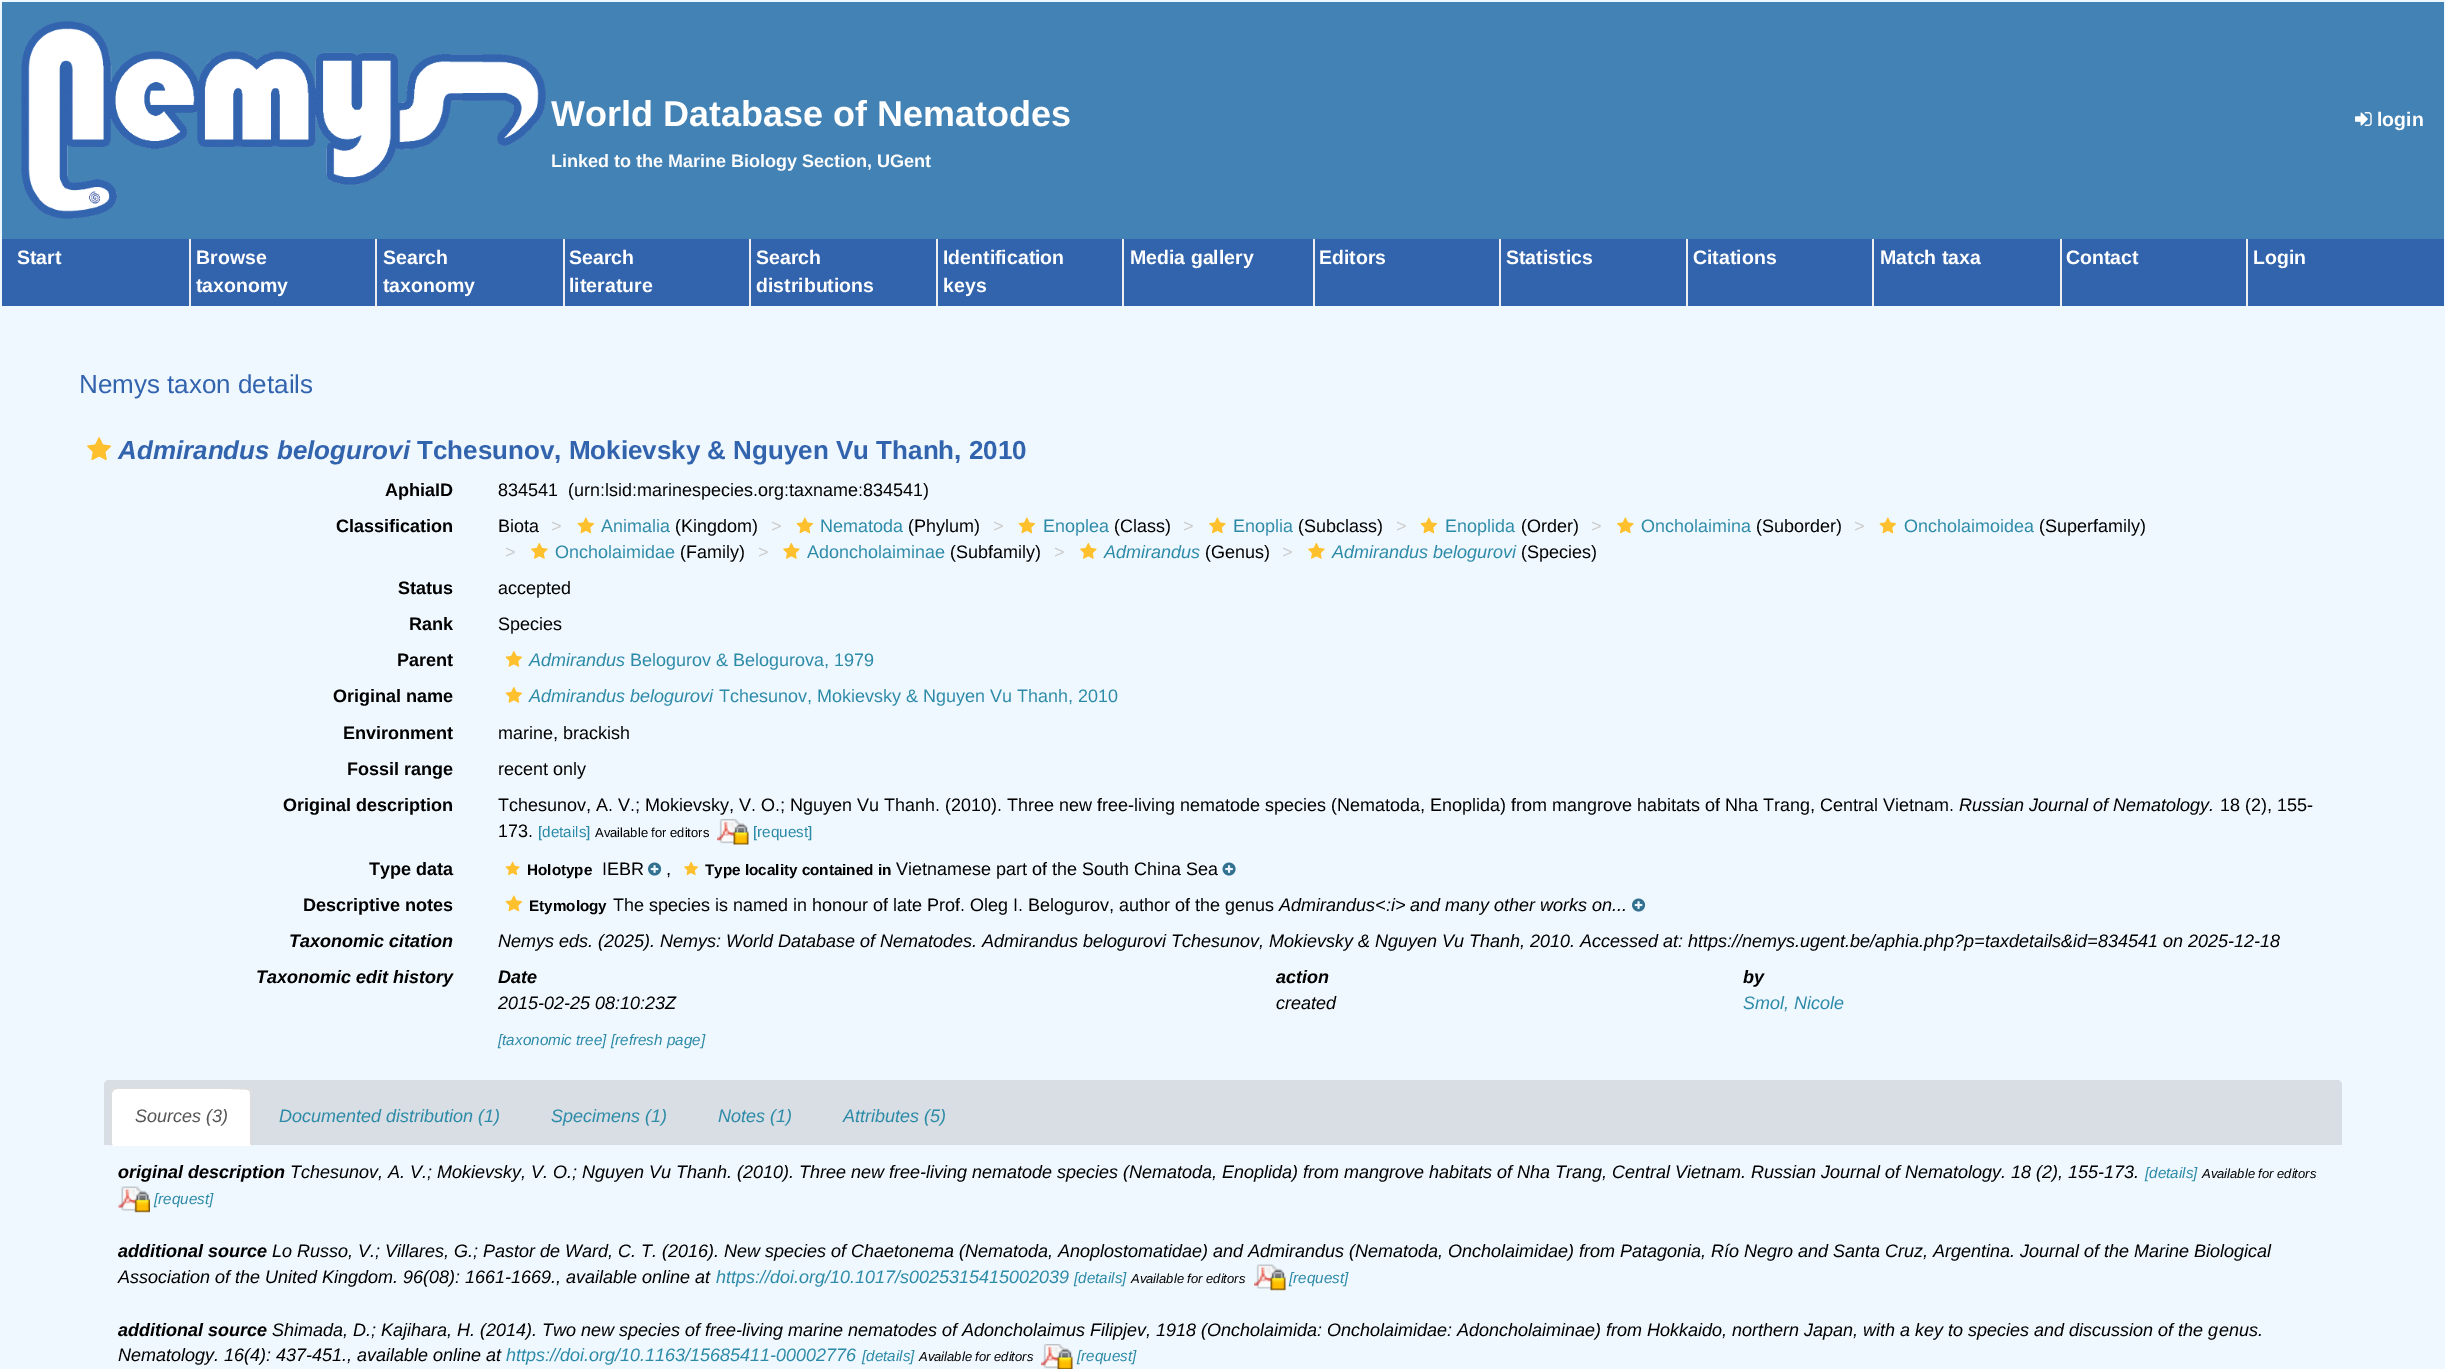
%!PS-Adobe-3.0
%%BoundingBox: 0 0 2445 1369
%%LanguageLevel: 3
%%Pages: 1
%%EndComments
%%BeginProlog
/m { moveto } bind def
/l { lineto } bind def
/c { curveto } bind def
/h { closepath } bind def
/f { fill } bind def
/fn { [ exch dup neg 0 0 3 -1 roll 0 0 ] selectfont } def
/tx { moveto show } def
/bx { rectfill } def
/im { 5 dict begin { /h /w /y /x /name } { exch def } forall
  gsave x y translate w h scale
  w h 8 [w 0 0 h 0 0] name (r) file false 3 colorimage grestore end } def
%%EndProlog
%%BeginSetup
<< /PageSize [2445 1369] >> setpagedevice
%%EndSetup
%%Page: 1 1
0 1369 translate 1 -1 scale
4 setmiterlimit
0.941 0.973 1 setrgbcolor
0 0 2445 1369 bx
0.263 0.51 0.706 setrgbcolor
2 2 2442 237 bx
(image0.raw) 21 21 525 198 im
/LiberationSans-Bold 36 fn
1 setgray
(World Database of Nematodes) 551 126 tx
/LiberationSans-Bold 18 fn
(Linked to the Marine Biology Section, UGent) 551 167 tx
(image1.raw) 2355 112 17 14 im
/LiberationSans-Bold 19.5 fn
(login) 2377 126 tx
0.196 0.392 0.682 setrgbcolor
2 239 2442 67 bx
1 setgray
(Start) 17 264 tx
0.933 setgray
189 239 2 67 bx
1 setgray
(Browse) 196 264 tx
(taxonomy) 196 292 tx
0.933 setgray
375 239 2 67 bx
1 setgray
(Search) 383 264 tx
(taxonomy) 383 292 tx
0.933 setgray
563 239 2 67 bx
1 setgray
(Search) 569 264 tx
(literature) 569 292 tx
0.933 setgray
749 239 2 67 bx
1 setgray
(Search) 756 264 tx
(distributions) 756 292 tx
0.933 setgray
936 239 2 67 bx
1 setgray
(Identification) 943 264 tx
(keys) 943 292 tx
0.933 setgray
1122 239 2 67 bx
1 setgray
(Media gallery) 1130 264 tx
0.933 setgray
1313 239 2 67 bx
1 setgray
(Editors) 1319 264 tx
0.933 setgray
1499 239 2 67 bx
1 setgray
(Statistics) 1506 264 tx
0.933 setgray
1686 239 2 67 bx
1 setgray
(Citations) 1693 264 tx
0.933 setgray
1872 239 2 67 bx
1 setgray
(Match taxa) 1880 264 tx
0.933 setgray
2060 239 2 67 bx
1 setgray
(Contact) 2066 264 tx
0.933 setgray
2246 239 2 67 bx
1 setgray
(Login) 2253 264 tx
/LiberationSans-Regular 26 fn
0.196 0.392 0.682 setrgbcolor
(Nemys taxon details) 79 393 tx
(image2.raw) 87 437 25 24 im
/LiberationSans-BoldItalic 26 fn
(Admirandus belogurovi) 118 459 tx
/LiberationSans-Bold 26 fn
(Tchesunov, Mokievsky & Nguyen Vu Thanh, 2010) 417 459 tx
/LiberationSans-Bold 18 fn
0 setgray
(AphiaID) 385 496 tx
/LiberationSans-Regular 18 fn
(834541) 498 496 tx
(\(urn:lsid:marinespecies.org:taxname:834541\)) 568 496 tx
/LiberationSans-Bold 18 fn
(Classification) 336 532 tx
/LiberationSans-Regular 18 fn
(Biota) 498 532 tx
0.8 setgray
(>) 551 532 tx
(image3.raw) 577 517 18 17 im
0.176 0.545 0.659 setrgbcolor
(Animalia) 601 532 tx
0 setgray
(\(Kingdom\)) 675 532 tx
0.8 setgray
(>) 771 532 tx
(image3.raw) 796 517 18 17 im
0.176 0.545 0.659 setrgbcolor
(Nematoda) 820 532 tx
0 setgray
(\(Phylum\)) 908 532 tx
0.8 setgray
(>) 993 532 tx
(image3.raw) 1018 517 18 17 im
0.176 0.545 0.659 setrgbcolor
(Enoplea) 1043 532 tx
0 setgray
(\(Class\)) 1114 532 tx
0.8 setgray
(>) 1183 532 tx
(image4.raw) 1209 517 17 17 im
0.176 0.545 0.659 setrgbcolor
(Enoplia) 1233 532 tx
0 setgray
(\(Subclass\)) 1298 532 tx
0.8 setgray
(>) 1396 532 tx
(image3.raw) 1420 517 18 17 im
0.176 0.545 0.659 setrgbcolor
(Enoplida) 1445 532 tx
0 setgray
(\(Order\)) 1521 532 tx
0.8 setgray
(>) 1591 532 tx
(image4.raw) 1617 517 17 17 im
0.176 0.545 0.659 setrgbcolor
(Oncholaimina) 1641 532 tx
0 setgray
(\(Suborder\)) 1756 532 tx
0.8 setgray
(>) 1854 532 tx
(image3.raw) 1879 517 18 17 im
0.176 0.545 0.659 setrgbcolor
(Oncholaimoidea) 1904 532 tx
0 setgray
(\(Superfamily\)) 2039 532 tx
0.8 setgray
(>) 505 558 tx
(image5.raw) 531 542 17 17 im
0.176 0.545 0.659 setrgbcolor
(Oncholaimidae) 555 558 tx
0 setgray
(\(Family\)) 680 558 tx
0.8 setgray
(>) 758 558 tx
(image5.raw) 783 542 17 17 im
0.176 0.545 0.659 setrgbcolor
(Adoncholaiminae) 807 558 tx
0 setgray
(\(Subfamily\)) 950 558 tx
0.8 setgray
(>) 1054 558 tx
(image5.raw) 1080 542 17 17 im
/LiberationSans-Italic 18 fn
0.176 0.545 0.659 setrgbcolor
(Admirandus) 1104 558 tx
/LiberationSans-Regular 18 fn
0 setgray
(\(Genus\)) 1205 558 tx
0.8 setgray
(>) 1282 558 tx
(image5.raw) 1308 542 17 17 im
/LiberationSans-Italic 18 fn
0.176 0.545 0.659 setrgbcolor
(Admirandus belogurovi) 1332 558 tx
/LiberationSans-Regular 18 fn
0 setgray
(\(Species\)) 1521 558 tx
/LiberationSans-Bold 18 fn
(Status) 398 594 tx
/LiberationSans-Regular 18 fn
(accepted) 498 594 tx
/LiberationSans-Bold 18 fn
(Rank) 409 630 tx
/LiberationSans-Regular 18 fn
(Species) 498 630 tx
/LiberationSans-Bold 18 fn
(Parent) 397 666 tx
(image6.raw) 505 650 18 17 im
/LiberationSans-Italic 18 fn
0.176 0.545 0.659 setrgbcolor
(Admirandus) 529 666 tx
/LiberationSans-Regular 18 fn
(Belogurov & Belogurova, 1979) 630 666 tx
/LiberationSans-Bold 18 fn
0 setgray
(Original name) 333 702 tx
(image6.raw) 505 686 18 17 im
/LiberationSans-Italic 18 fn
0.176 0.545 0.659 setrgbcolor
(Admirandus belogurovi) 529 702 tx
/LiberationSans-Regular 18 fn
(Tchesunov, Mokievsky & Nguyen Vu Thanh, 2010) 719 702 tx
/LiberationSans-Bold 18 fn
0 setgray
(Environment) 343 739 tx
/LiberationSans-Regular 18 fn
(marine, brackish) 498 739 tx
/LiberationSans-Bold 18 fn
(Fossil range) 347 775 tx
/LiberationSans-Regular 18 fn
(recent only) 498 775 tx
/LiberationSans-Bold 18 fn
(Original description) 283 811 tx
/LiberationSans-Regular 18 fn
(Tchesunov, A. V.; Mokievsky, V. O.; Nguyen Vu Thanh. \(2010\). Three new free-living nematode species \(Nematoda, Enoplida\) from mangrove habitats of Nha Trang, Central Vietnam.) 498 811 tx
/LiberationSans-Italic 18 fn
(Russian Journal of Nematology.) 1959 811 tx
/LiberationSans-Regular 18 fn
(18 \(2\), 155-) 2220 811 tx
(173.) 498 837 tx
/LiberationSans-Regular 15.25 fn
0.176 0.545 0.659 setrgbcolor
([details]) 538 837 tx
/LiberationSans-Regular 13 fn
0 setgray
(Available for editors) 595 837 tx
(image7.raw) 717 819 32 26 im
/LiberationSans-Regular 15.25 fn
0.176 0.545 0.659 setrgbcolor
([request]) 753 837 tx
/LiberationSans-Bold 18 fn
0 setgray
(Type data) 369 875 tx
(image8.raw) 505 861 15 15 im
/LiberationSans-Bold 15.25 fn
(Holotype) 527 875 tx
/LiberationSans-Regular 18 fn
(IEBR) 602 875 tx
(image9.raw) 648 862 14 14 im
(,) 666 875 tx
(image10.raw) 684 861 15 15 im
/LiberationSans-Bold 15.25 fn
(Type locality contained in) 705 875 tx
/LiberationSans-Regular 18 fn
(Vietnamese part of the South China Sea) 896 875 tx
(image11.raw) 1222 862 14 14 im
/LiberationSans-Bold 18 fn
(Descriptive notes) 303 911 tx
(image3.raw) 505 895 18 17 im
/LiberationSans-Bold 15.25 fn
(Etymology) 529 911 tx
/LiberationSans-Regular 18 fn
(The species is named in honour of late Prof. Oleg I. Belogurov, author of the genus) 613 911 tx
/LiberationSans-Italic 18 fn
(Admirandus<:i> and many other works on...) 1279 911 tx
(image9.raw) 1632 898 14 14 im
/LiberationSans-BoldItalic 18 fn
(Taxonomic citation) 289 947 tx
/LiberationSans-Italic 18 fn
(Nemys eds. \(2025\). Nemys: World Database of Nematodes. Admirandus belogurovi Tchesunov, Mokievsky & Nguyen Vu Thanh, 2010. Accessed at: https://nemys.ugent.be/aphia.php?p=taxdetails&id=834541 on 2025-12-18) 498 947 tx
/LiberationSans-BoldItalic 18 fn
(Taxonomic edit history) 256 983 tx
(Date) 498 983 tx
(action) 1276 983 tx
(by) 1743 983 tx
/LiberationSans-Italic 18 fn
(2015-02-25 08:10:23Z) 498 1009 tx
(created) 1276 1009 tx
0.176 0.545 0.659 setrgbcolor
(Smol, Nicole) 1743 1009 tx
/LiberationSans-Italic 15.25 fn
([taxonomic tree] [refresh page]) 498 1045 tx
0.847 0.871 0.894 setrgbcolor
109 1080 m 2337 1080 l 2340 1080 2342 1082 2342 1085 c 2342 1145 l 104 1145 l 104 1085 l 104 1082 106 1080 109 1080 c h f
1 setgray
117 1088 m 246 1088 l 249.5 1088 252 1090.5 252 1094 c 252 1146 l 111 1146 l 111 1094 l 111 1090.5 113.5 1088 117 1088 c h f
0.867 setgray
117 1088 m 116 1088 114 1088 113 1089 c 114 1090 l 117 1089 l 138 1089 l 150 1089 245 1088 248 1090 c 249 1091 l 250 1089 l 249 1088 247 1088 246 1088 c h f
250 1089 m 251 1090 252 1092 252 1094 c 252 1146 l 250 1144 l 250 1094 l 250 1093 250 1091 249 1091 c h f
111 1146 m 113 1144 l 112 1144 l 112 1093 l 114 1090 l 113 1089 l 112 1090 111 1092 111 1094 c h f
/LiberationSans-Italic 18 fn
0.333 setgray
(Sources \(3\)) 135 1122 tx
0.176 0.545 0.659 setrgbcolor
(Documented distribution \(1\)) 279 1122 tx
(Specimens \(1\)) 551 1122 tx
(Notes \(1\)) 718 1122 tx
(Attributes \(5\)) 843 1122 tx
/LiberationSans-BoldItalic 18 fn
0 setgray
(original description) 118 1178 tx
/LiberationSans-Italic 18 fn
(Tchesunov, A. V.; Mokievsky, V. O.; Nguyen Vu Thanh. \(2010\). Three new free-living nematode species \(Nematoda, Enoplida\) from mangrove habitats of Nha Trang, Central Vietnam. Russian Journal of Nematology. 18 \(2\), 155-173.) 290 1178 tx
/LiberationSans-Italic 15.25 fn
0.176 0.545 0.659 setrgbcolor
([details]) 2145 1178 tx
/LiberationSans-Italic 13 fn
0 setgray
(Available for editors) 2202 1178 tx
(image12.raw) 118 1186 32 27 im
/LiberationSans-Italic 15.25 fn
0.176 0.545 0.659 setrgbcolor
([request]) 154 1204 tx
/LiberationSans-BoldItalic 18 fn
0 setgray
(additional source) 118 1257 tx
/LiberationSans-Italic 18 fn
(Lo Russo, V.; Villares, G.; Pastor de Ward, C. T. \(2016\). New species of Chaetonema \(Nematoda, Anoplostomatidae\) and Admirandus \(Nematoda, Oncholaimidae\) from Patagonia, Río Negro and Santa Cruz, Argentina. Journal of the Marine Biological) 272 1257 tx
(Association of the United Kingdom. 96\(08\): 1661-1669., available online at) 118 1283 tx
0.176 0.545 0.659 setrgbcolor
(https://doi.org/10.1017/s0025315415002039) 716 1283 tx
/LiberationSans-Italic 15.25 fn
([details]) 1074 1283 tx
/LiberationSans-Italic 13 fn
0 setgray
(Available for editors) 1131 1283 tx
(image13.raw) 1254 1264 32 27 im
/LiberationSans-Italic 15.25 fn
0.176 0.545 0.659 setrgbcolor
([request]) 1289 1283 tx
/LiberationSans-BoldItalic 18 fn
0 setgray
(additional source) 118 1336 tx
/LiberationSans-Italic 18 fn
(Shimada, D.; Kajihara, H. \(2014\). Two new species of free-living marine nematodes of Adoncholaimus Filipjev, 1918 \(Oncholaimida: Oncholaimidae: Adoncholaiminae\) from Hokkaido, northern Japan, with a key to species and discussion of the genus.) 272 1336 tx
(Nematology. 16\(4\): 437-451., available online at) 118 1361 tx
0.176 0.545 0.659 setrgbcolor
(https://doi.org/10.1163/15685411-00002776) 506 1361 tx
/LiberationSans-Italic 15.25 fn
([details]) 862 1361 tx
/LiberationSans-Italic 13 fn
0 setgray
(Available for editors) 919 1361 tx
(image14.raw) 1041 1344 32 25 im
/LiberationSans-Italic 15.25 fn
0.176 0.545 0.659 setrgbcolor
([request]) 1077 1361 tx
showpage
%%EOF
